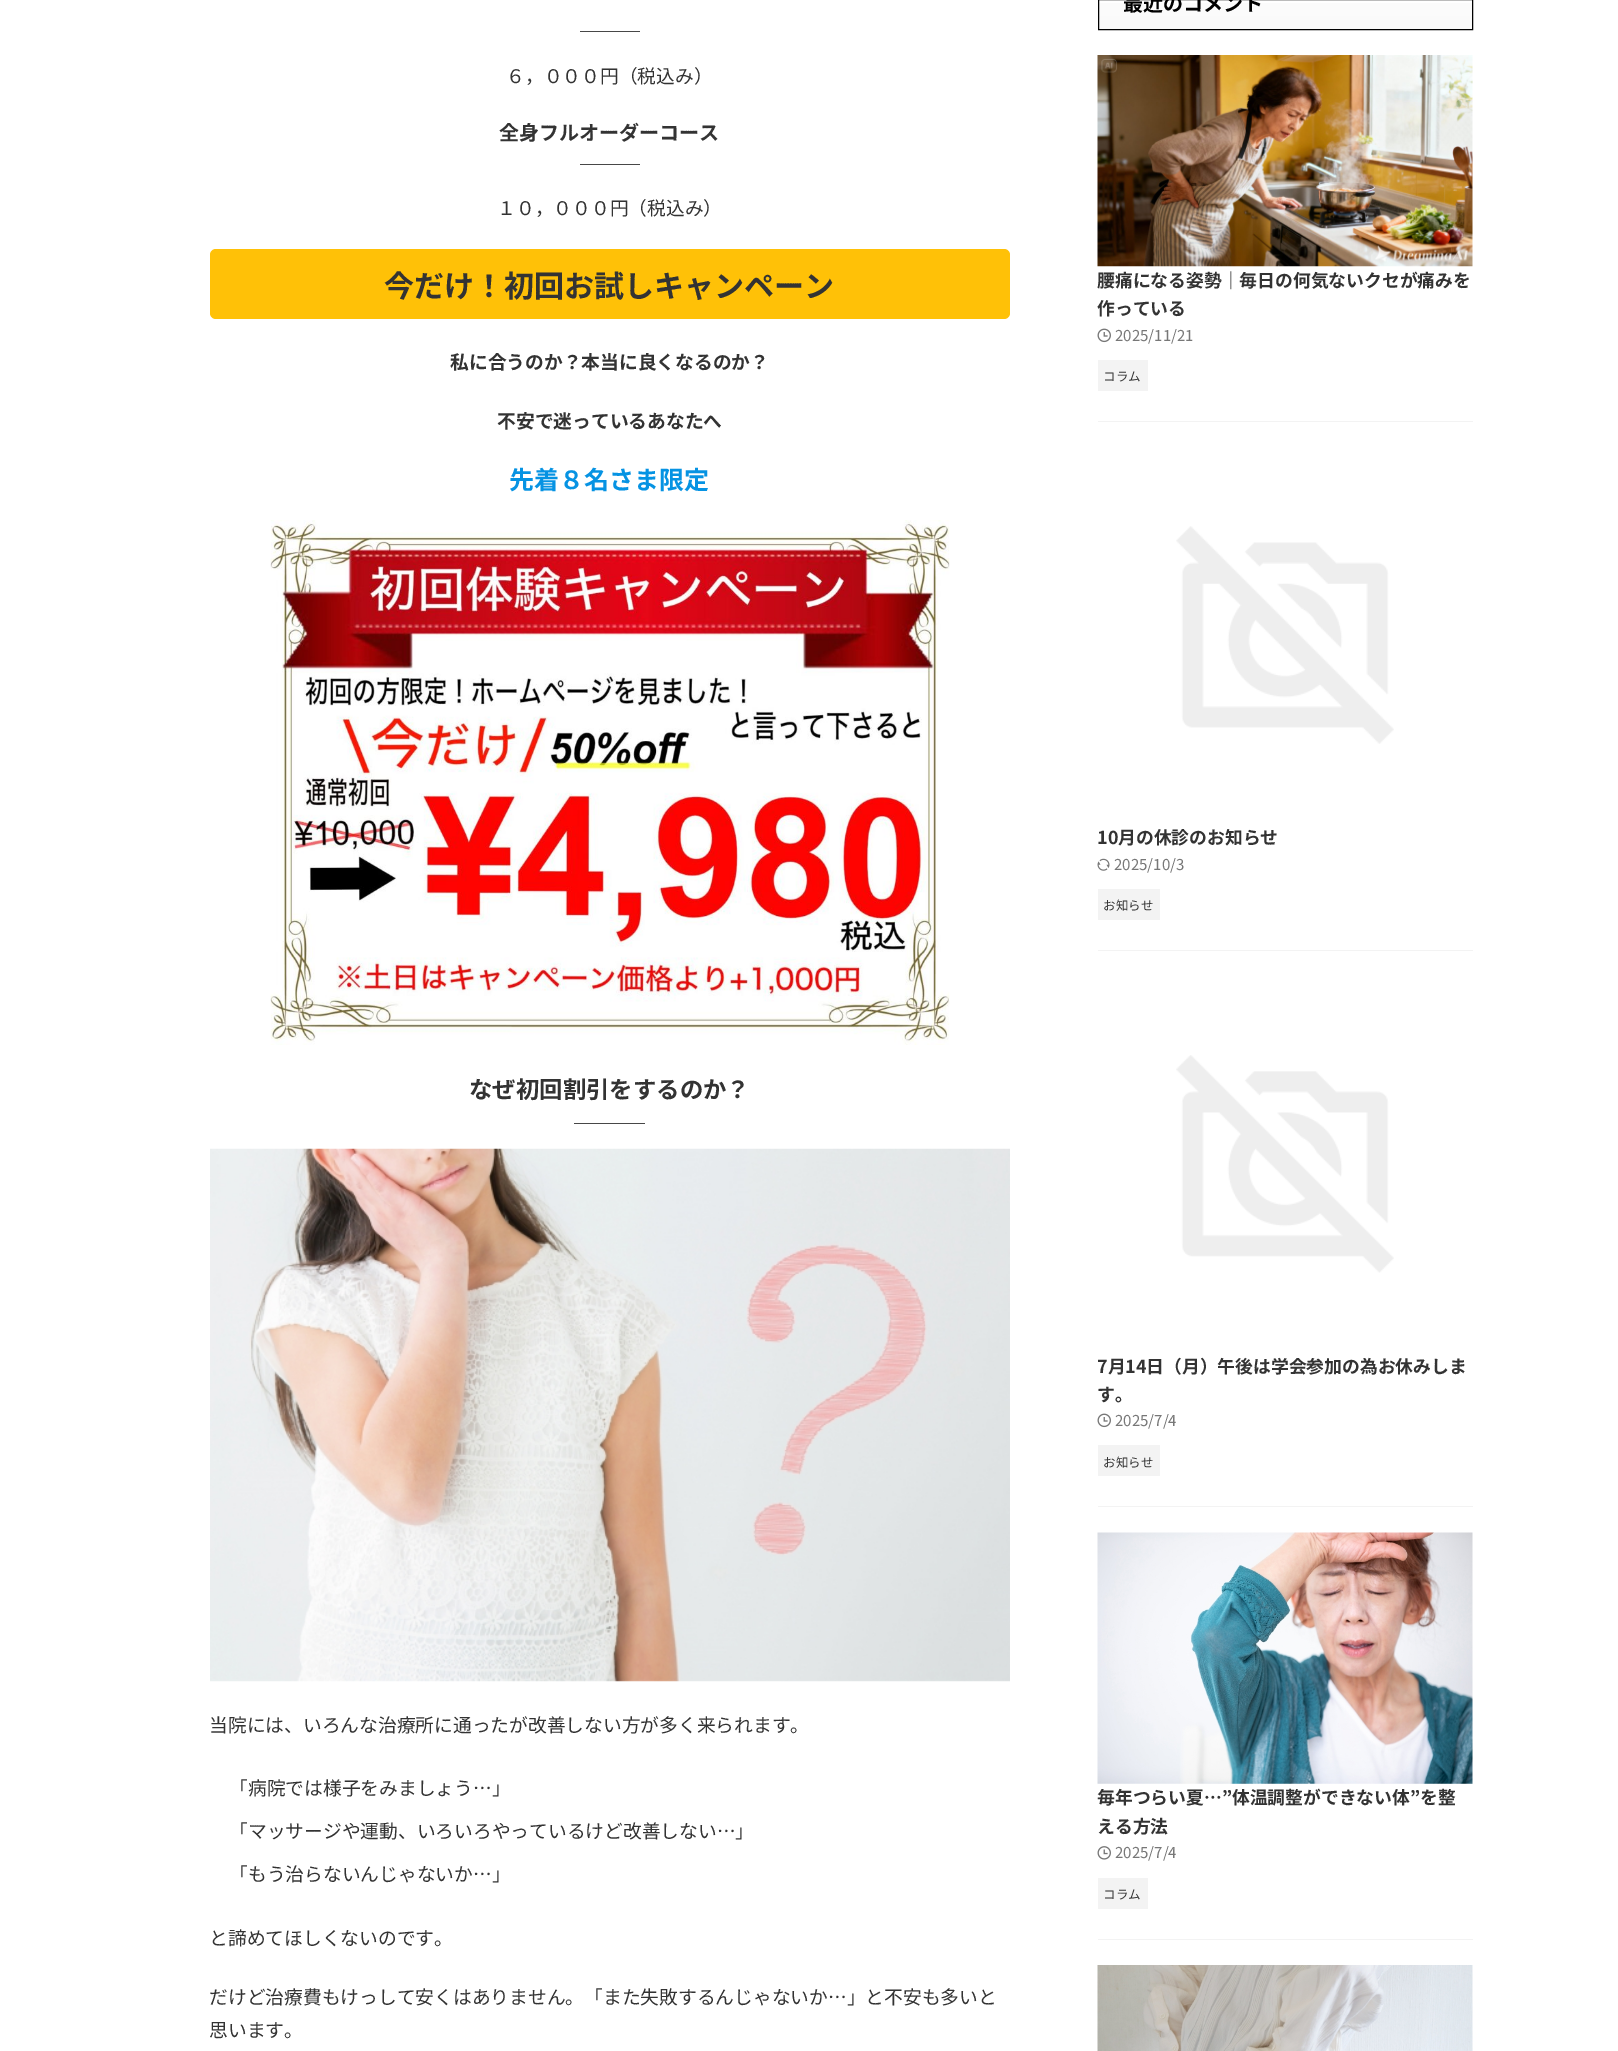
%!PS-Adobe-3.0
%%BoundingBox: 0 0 1618 2051
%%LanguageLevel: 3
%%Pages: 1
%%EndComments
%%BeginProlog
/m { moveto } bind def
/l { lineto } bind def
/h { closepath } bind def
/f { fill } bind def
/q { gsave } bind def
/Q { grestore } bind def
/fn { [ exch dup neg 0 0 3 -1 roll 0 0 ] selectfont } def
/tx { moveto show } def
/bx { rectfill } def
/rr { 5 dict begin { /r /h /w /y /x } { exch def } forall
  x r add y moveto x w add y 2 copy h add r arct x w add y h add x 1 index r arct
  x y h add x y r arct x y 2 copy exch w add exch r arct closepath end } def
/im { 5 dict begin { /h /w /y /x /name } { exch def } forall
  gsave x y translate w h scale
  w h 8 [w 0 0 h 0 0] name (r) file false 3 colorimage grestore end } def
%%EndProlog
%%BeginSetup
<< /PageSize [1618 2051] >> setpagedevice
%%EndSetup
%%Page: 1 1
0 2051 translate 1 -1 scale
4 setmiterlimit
1 setgray
0 0 1618 2051 bx
0.278 setgray
580 31 60 1 bx
/NotoSansJP-Regular 18.75 fn
0.2 setgray
(６，０００円（税込み）) 506 83 tx
/NotoSansJP-Bold 20 fn
(全身フルオーダーコース) 499 140 tx
0.278 setgray
580 164 60 1 bx
/NotoSansJP-Regular 18.75 fn
0.2 setgray
(１０，０００円（税込み）) 497 215 tx
1 0.757 0.027 setrgbcolor
210 249 800 70 6 rr f
/NotoSansJP-Bold 30 fn
0.2 setgray
(今だけ！初回お試しキャンペーン) 384 297 tx
/NotoSansJP-Bold 18.75 fn
(私に合うのか？本当に良くなるのか？) 450 369 tx
(不安で迷っているあなたへ) 497 428 tx
/NotoSansJP-Bold 25 fn
0.024 0.576 0.89 setrgbcolor
(先着８名さま限定) 509 489 tx
(image0.raw) 270 520 680 525 im
/NotoSansJP-Bold 23.4 fn
0.2 setgray
(なぜ初回割引をするのか？) 469 1098 tx
0.278 setgray
574 1123 71 1 bx
(image1.raw) 210 1148 800 534 im
/NotoSansJP-Regular 18.75 fn
0.2 setgray
(当院には、いろんな治療所に通ったが改善しない方が多く来られます。) 209 1732 tx
(「病院では様子をみましょう…」) 229 1795 tx
(「マッサージや運動、いろいろやっているけど改善しない…」) 229 1838 tx
(「もう治らないんじゃないか…」) 229 1881 tx
(と諦めてほしくないのです。) 209 1945 tx
(だけど治療費もけっして安くはありません。「また失敗するんじゃないか…」と不安も多いと) 209 2004 tx
(思います。) 209 2037 tx
q 1099 3 m 1472 3 l 1472 29 l 1099 29 l h clip newpath
<< /ShadingType 2 /ColorSpace /DeviceRGB /Coords [1285 -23 1285 29] /Extend [true true] /Function << /FunctionType 2 /Domain [0 1] /C0 [1 1 1] /C1 [0.98 0.98 0.98] /N 1 >> >> shfill Q
0 setgray
1098.5 -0.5 374 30 rectstroke
/NotoSansJP-Bold 20 fn
(最近のコメント) 1123 11 tx
0.953 setgray
1098 421 375 1 bx
(image2.raw) 1097 55 376 212 im
/NotoSansJP-Bold 17.8 fn
0.2 setgray
(腰痛になる姿勢｜毎日の何気ないクセが痛みを) 1097 287 tx
(作っている) 1097 315 tx
(image3.raw) 1097 328 14 15 im
/NotoSansJP-Regular 15 fn
0.467 setgray
(2025/11/21) 1115 341 tx
0.953 setgray
1098 360 50 31 bx
/NotoSansJP-Regular 12.5 fn
0.2 setgray
(コラム) 1103 381 tx
0.953 setgray
1098 950 375 1 bx
(image4.raw) 1176 526 218 218 im
/NotoSansJP-Bold 17.8 fn
0.2 setgray
(10月の休診のお知らせ) 1097 844 tx
(image5.raw) 1097 858 13 13 im
/NotoSansJP-Regular 15 fn
0.467 setgray
(2025/10/3) 1114 870 tx
0.953 setgray
1098 889 62 31 bx
/NotoSansJP-Regular 12.5 fn
0.2 setgray
(お知らせ) 1103 910 tx
0.953 setgray
1098 1506 375 1 bx
(image6.raw) 1176 1055 218 218 im
/NotoSansJP-Bold 17.8 fn
0.2 setgray
(7月14日（月）午後は学会参加の為お休みしま) 1097 1373 tx
(す。) 1097 1401 tx
(image3.raw) 1097 1413 14 15 im
/NotoSansJP-Regular 15 fn
0.467 setgray
(2025/7/4) 1115 1426 tx
0.953 setgray
1098 1445 62 31 bx
/NotoSansJP-Regular 12.5 fn
0.2 setgray
(お知らせ) 1103 1467 tx
0.953 setgray
1098 1939 375 1 bx
(image7.raw) 1097 1532 376 252 im
/NotoSansJP-Bold 17.8 fn
0.2 setgray
(毎年つらい夏…”体温調整ができない体”を整) 1097 1804 tx
(える方法) 1097 1833 tx
(image8.raw) 1097 1846 14 14 im
/NotoSansJP-Regular 15 fn
0.467 setgray
(2025/7/4) 1115 1858 tx
0.953 setgray
1098 1878 50 31 bx
/NotoSansJP-Regular 12.5 fn
0.2 setgray
(コラム) 1103 1899 tx
(image9.raw) 1097 1965 376 86 im
showpage
%%EOF
